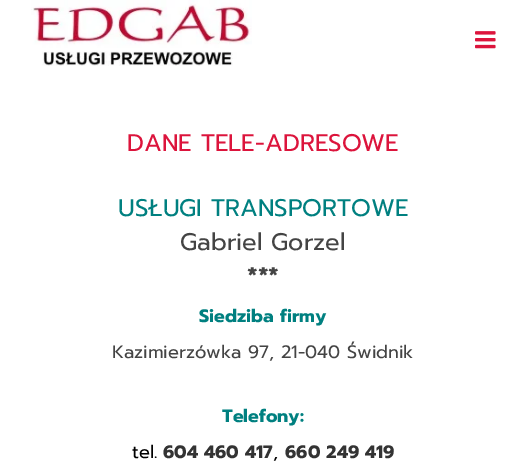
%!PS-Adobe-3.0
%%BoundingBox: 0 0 526 466
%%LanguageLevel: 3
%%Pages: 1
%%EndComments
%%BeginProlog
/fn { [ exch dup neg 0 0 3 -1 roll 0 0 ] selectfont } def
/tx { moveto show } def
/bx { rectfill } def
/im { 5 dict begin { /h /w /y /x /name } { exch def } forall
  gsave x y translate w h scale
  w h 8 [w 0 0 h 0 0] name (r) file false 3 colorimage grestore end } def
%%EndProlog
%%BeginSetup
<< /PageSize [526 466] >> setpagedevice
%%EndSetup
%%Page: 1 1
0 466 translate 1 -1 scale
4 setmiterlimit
1 setgray
0 0 526 466 bx
(image0.raw) 31 0 221 66 im
(image1.raw) 475 31 21 18 im
/Prompt-Regular 24 fn
0.863 0.078 0.235 setrgbcolor
(DANE TELE-ADRESOWE) 127 151 tx
0 0.502 0.502 setrgbcolor
(USŁUGI TRANSPORTOWE) 118 216 tx
0.267 setgray
(Gabriel Gorzel) 180 250 tx
/Prompt-Bold 24 fn
(***) 247 284 tx
/Prompt-Bold 18 fn
0 0.502 0.502 setrgbcolor
(Siedziba firmy) 199 322 tx
/Prompt-Regular 18 fn
0.267 setgray
(Kazimierzówka 97, 21-040 Świdnik) 112 358 tx
/Prompt-Bold 18 fn
0 0.502 0.502 setrgbcolor
(Telefony:) 222 422 tx
/Prompt-Regular 18 fn
0 setgray
(tel.) 132 458 tx
/Prompt-Bold 18 fn
0.2 setgray
(604 460 417) 163 458 tx
/Prompt-Regular 18 fn
0 setgray
(,) 273 458 tx
/Prompt-Bold 18 fn
0.2 setgray
(660 249 419) 285 458 tx
showpage
%%EOF
